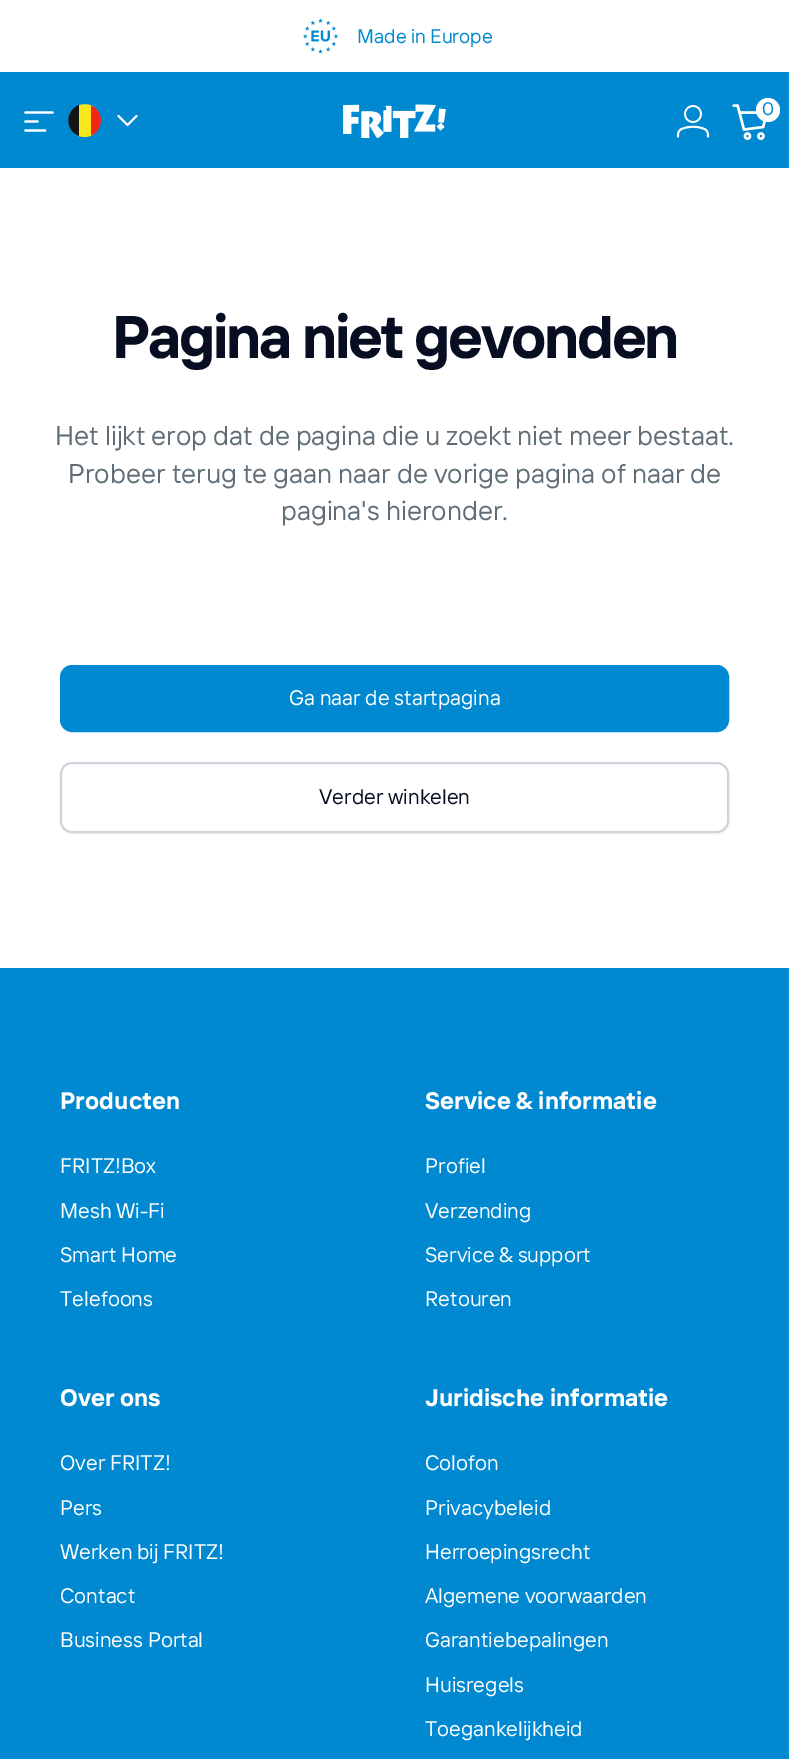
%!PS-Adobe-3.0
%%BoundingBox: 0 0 789 1759
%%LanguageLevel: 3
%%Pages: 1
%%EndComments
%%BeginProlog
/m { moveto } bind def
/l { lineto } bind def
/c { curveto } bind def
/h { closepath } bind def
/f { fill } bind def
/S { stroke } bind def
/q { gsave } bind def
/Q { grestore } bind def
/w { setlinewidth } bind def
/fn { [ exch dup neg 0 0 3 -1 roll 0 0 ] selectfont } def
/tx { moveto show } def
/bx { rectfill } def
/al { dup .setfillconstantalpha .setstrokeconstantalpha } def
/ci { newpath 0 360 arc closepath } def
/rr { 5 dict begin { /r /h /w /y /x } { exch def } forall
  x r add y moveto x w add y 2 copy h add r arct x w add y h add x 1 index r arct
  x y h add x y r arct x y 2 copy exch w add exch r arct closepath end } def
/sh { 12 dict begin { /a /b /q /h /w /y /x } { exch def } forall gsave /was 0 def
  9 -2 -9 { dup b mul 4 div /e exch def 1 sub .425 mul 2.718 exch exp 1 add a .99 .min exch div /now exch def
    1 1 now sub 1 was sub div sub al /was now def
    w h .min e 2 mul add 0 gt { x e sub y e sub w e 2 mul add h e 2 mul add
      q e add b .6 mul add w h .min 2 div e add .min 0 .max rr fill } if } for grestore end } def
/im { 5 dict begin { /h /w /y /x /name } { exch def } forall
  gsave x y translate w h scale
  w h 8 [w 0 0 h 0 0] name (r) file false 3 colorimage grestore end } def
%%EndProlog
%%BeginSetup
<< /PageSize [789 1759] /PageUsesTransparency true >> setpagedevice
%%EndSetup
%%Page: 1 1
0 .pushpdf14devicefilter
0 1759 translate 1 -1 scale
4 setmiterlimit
1 setgray
0 0 789 1759 bx
(image0.raw) 303 18 36 36 im
/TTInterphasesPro-Regular 19.5 fn
0 0.537 0.82 setrgbcolor
(Made in Europe) 357 43 tx
0 72 789 96 bx
1 setgray
2.2 w
1 setlinecap
25.5 112.5 m 52.5 112.5 l 25.5 121.5 m 37.5 121.5 l 25.5 130.5 m 45 130.5 l S
0.973 0.906 0.11 setrgbcolor
75 134 m 75 107.5 l 80.5 103.5 88.5 103 94 107 c 94 134 l 88.5 138 80.5 138 75 134 c h f
0.953 0.149 0.078 setrgbcolor
91 135.5 m 91 105.5 l 104 111 104 130 91 135.5 c h f
0.075 0.078 0.075 setrgbcolor
68.5 120.5 m 68.5 114 72.5 107.5 79 105 c 79 136 l 72.5 133.5 68.5 127.5 68.5 120.5 c h f
1 setgray
2.1 w
1 setlinejoin
118.5 116 m 127.5 125 l 136.5 116 l S
(image1.raw) 343 104 103 34 im
(image2.raw) 676 105 34 33 im
(image3.raw) 732 104 34 36 im
768 110 12 ci f
/TTInterphasesPro-Regular 18 fn
0 0.537 0.82 setrgbcolor
(0) 762 115 tx
/TTInterphasesPro-Bold 60 fn
0.027 0.055 0.129 setrgbcolor
112 358 m -2.4 0 (Pagina niet gevonden) ashow
/TTInterphasesPro-Regular 27 fn
0.373 0.427 0.463 setrgbcolor
(Het lijkt erop dat de pagina die u zoekt niet meer bestaat.) 55 445 tx
(Probeer terug te gaan naar de vorige pagina of naar de) 68 483 tx
(pagina's hieronder.) 281 520 tx
0 0.537 0.82 setrgbcolor
61 666 667 65 11 rr q f Q
2 w
0 setlinecap
0 setlinejoin
S
/TTInterphasesPro-Regular 21.1 fn
1 setgray
(Ga naar de startpagina) 289 705 tx
0.063 0.094 0.157 setrgbcolor
60 764 669 70 12 1.5 0.05 sh
1 setgray
61 763 667 69 11 rr q f Q
0.816 0.835 0.867 setrgbcolor
S
0.027 0.055 0.129 setrgbcolor
(Verder winkelen) 319 804 tx
0 0.537 0.82 setrgbcolor
0 968 789 791 bx
/TTInterphasesPro-Bold 24 fn
1 setgray
(Producten) 60 1109 tx
/TTInterphasesPro-Regular 21 fn
(FRITZ!Box) 60 1173 tx
(Mesh Wi-Fi) 60 1218 tx
(Smart Home) 60 1262 tx
(Telefoons) 60 1306 tx
/TTInterphasesPro-Bold 24 fn
(Service & informatie) 425 1109 tx
/TTInterphasesPro-Regular 21 fn
(Profiel) 425 1173 tx
(Verzending) 425 1218 tx
(Service & support) 425 1262 tx
(Retouren) 425 1306 tx
/TTInterphasesPro-Bold 24 fn
(Over ons) 60 1406 tx
/TTInterphasesPro-Regular 21 fn
(Over FRITZ!) 60 1470 tx
(Pers) 60 1515 tx
(Werken bij FRITZ!) 60 1559 tx
(Contact) 60 1603 tx
(Business Portal) 60 1647 tx
/TTInterphasesPro-Bold 24 fn
(Juridische informatie) 425 1406 tx
/TTInterphasesPro-Regular 21 fn
(Colofon) 425 1470 tx
(Privacybeleid) 425 1515 tx
(Herroepingsrecht) 425 1559 tx
(Algemene voorwaarden) 425 1603 tx
(Garantiebepalingen) 425 1647 tx
(Huisregels) 425 1692 tx
(Toegankelijkheid) 425 1736 tx
.poppdf14devicefilter showpage
%%EOF
